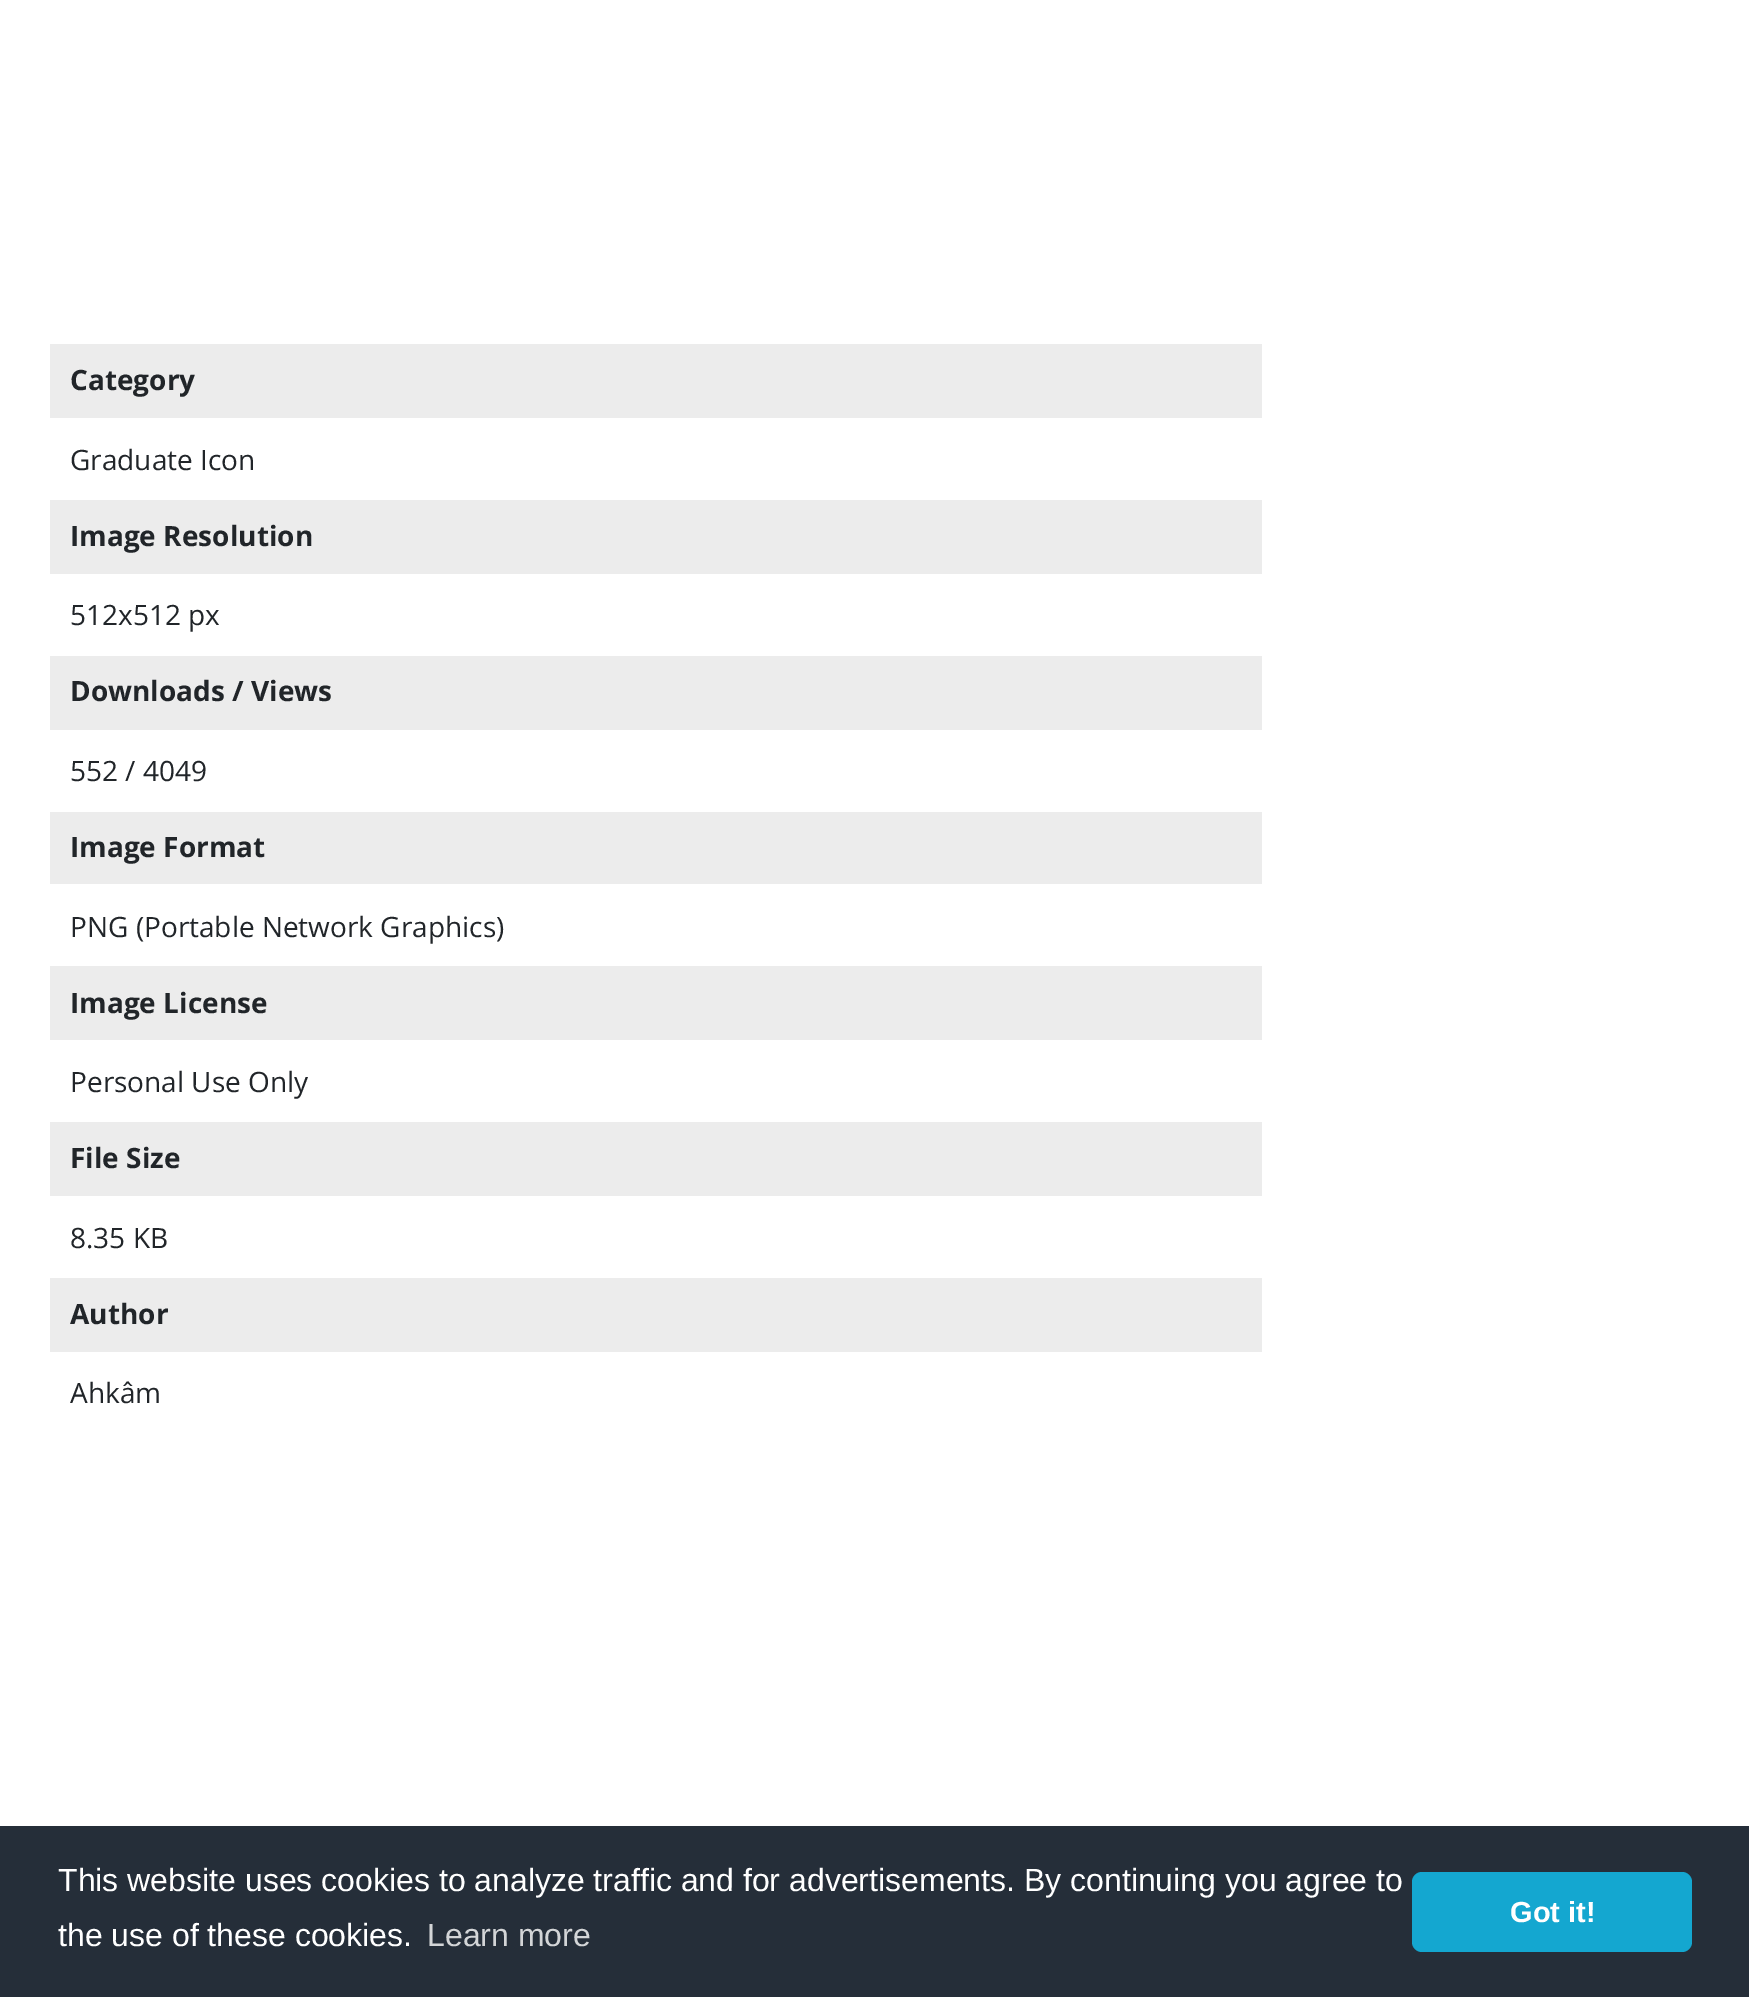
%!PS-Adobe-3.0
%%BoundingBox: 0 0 1749 1997
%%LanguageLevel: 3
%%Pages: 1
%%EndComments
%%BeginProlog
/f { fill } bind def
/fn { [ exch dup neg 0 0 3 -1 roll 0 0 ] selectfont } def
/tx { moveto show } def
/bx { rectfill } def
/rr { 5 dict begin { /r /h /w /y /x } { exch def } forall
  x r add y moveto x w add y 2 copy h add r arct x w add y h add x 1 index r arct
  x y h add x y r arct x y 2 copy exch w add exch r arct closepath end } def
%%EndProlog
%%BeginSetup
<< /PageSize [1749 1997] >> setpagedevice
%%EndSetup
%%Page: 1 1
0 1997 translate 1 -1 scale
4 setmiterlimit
1 setgray
0 0 1749 1997 bx
0.925 setgray
50 344 1212 74 bx
/OpenSans-Bold 28 fn
0.129 0.145 0.161 setrgbcolor
(Category) 70 390 tx
/OpenSans-Regular 28 fn
(Graduate Icon) 70 470 tx
0.925 setgray
50 500 1212 74 bx
/OpenSans-Bold 28 fn
0.129 0.145 0.161 setrgbcolor
(Image Resolution) 70 546 tx
/OpenSans-Regular 28 fn
(512x512 px) 70 625 tx
0.925 setgray
50 656 1212 74 bx
/OpenSans-Bold 28 fn
0.129 0.145 0.161 setrgbcolor
(Downloads / Views) 70 701 tx
/OpenSans-Regular 28 fn
(552 / 4049) 70 781 tx
0.925 setgray
50 812 1212 72 bx
/OpenSans-Bold 28 fn
0.129 0.145 0.161 setrgbcolor
(Image Format) 70 857 tx
/OpenSans-Regular 28 fn
(PNG \(Portable Network Graphics\)) 70 937 tx
0.925 setgray
50 966 1212 74 bx
/OpenSans-Bold 28 fn
0.129 0.145 0.161 setrgbcolor
(Image License) 70 1013 tx
/OpenSans-Regular 28 fn
(Personal Use Only) 70 1092 tx
0.925 setgray
50 1122 1212 74 bx
/OpenSans-Bold 28 fn
0.129 0.145 0.161 setrgbcolor
(File Size) 70 1168 tx
/OpenSans-Regular 28 fn
(8.35 KB) 70 1248 tx
0.925 setgray
50 1278 1212 74 bx
/OpenSans-Bold 28 fn
0.129 0.145 0.161 setrgbcolor
(Author) 70 1324 tx
/OpenSans-Regular 28 fn
(Ahkâm) 70 1403 tx
0.145 0.18 0.224 setrgbcolor
0 1826 1749 171 bx
/LiberationSans-Regular 32 fn
1 setgray
(This website uses cookies to analyze traffic and for advertisements. By continuing you agree to) 58 1891 tx
(the use of these cookies.) 58 1946 tx
0.827 0.835 0.843 setrgbcolor
(Learn more) 427 1946 tx
0.078 0.655 0.816 setrgbcolor
1412 1872 280 80 10 rr f
/LiberationSans-Bold 29 fn
1 setgray
(Got it!) 1510 1922 tx
showpage
%%EOF
